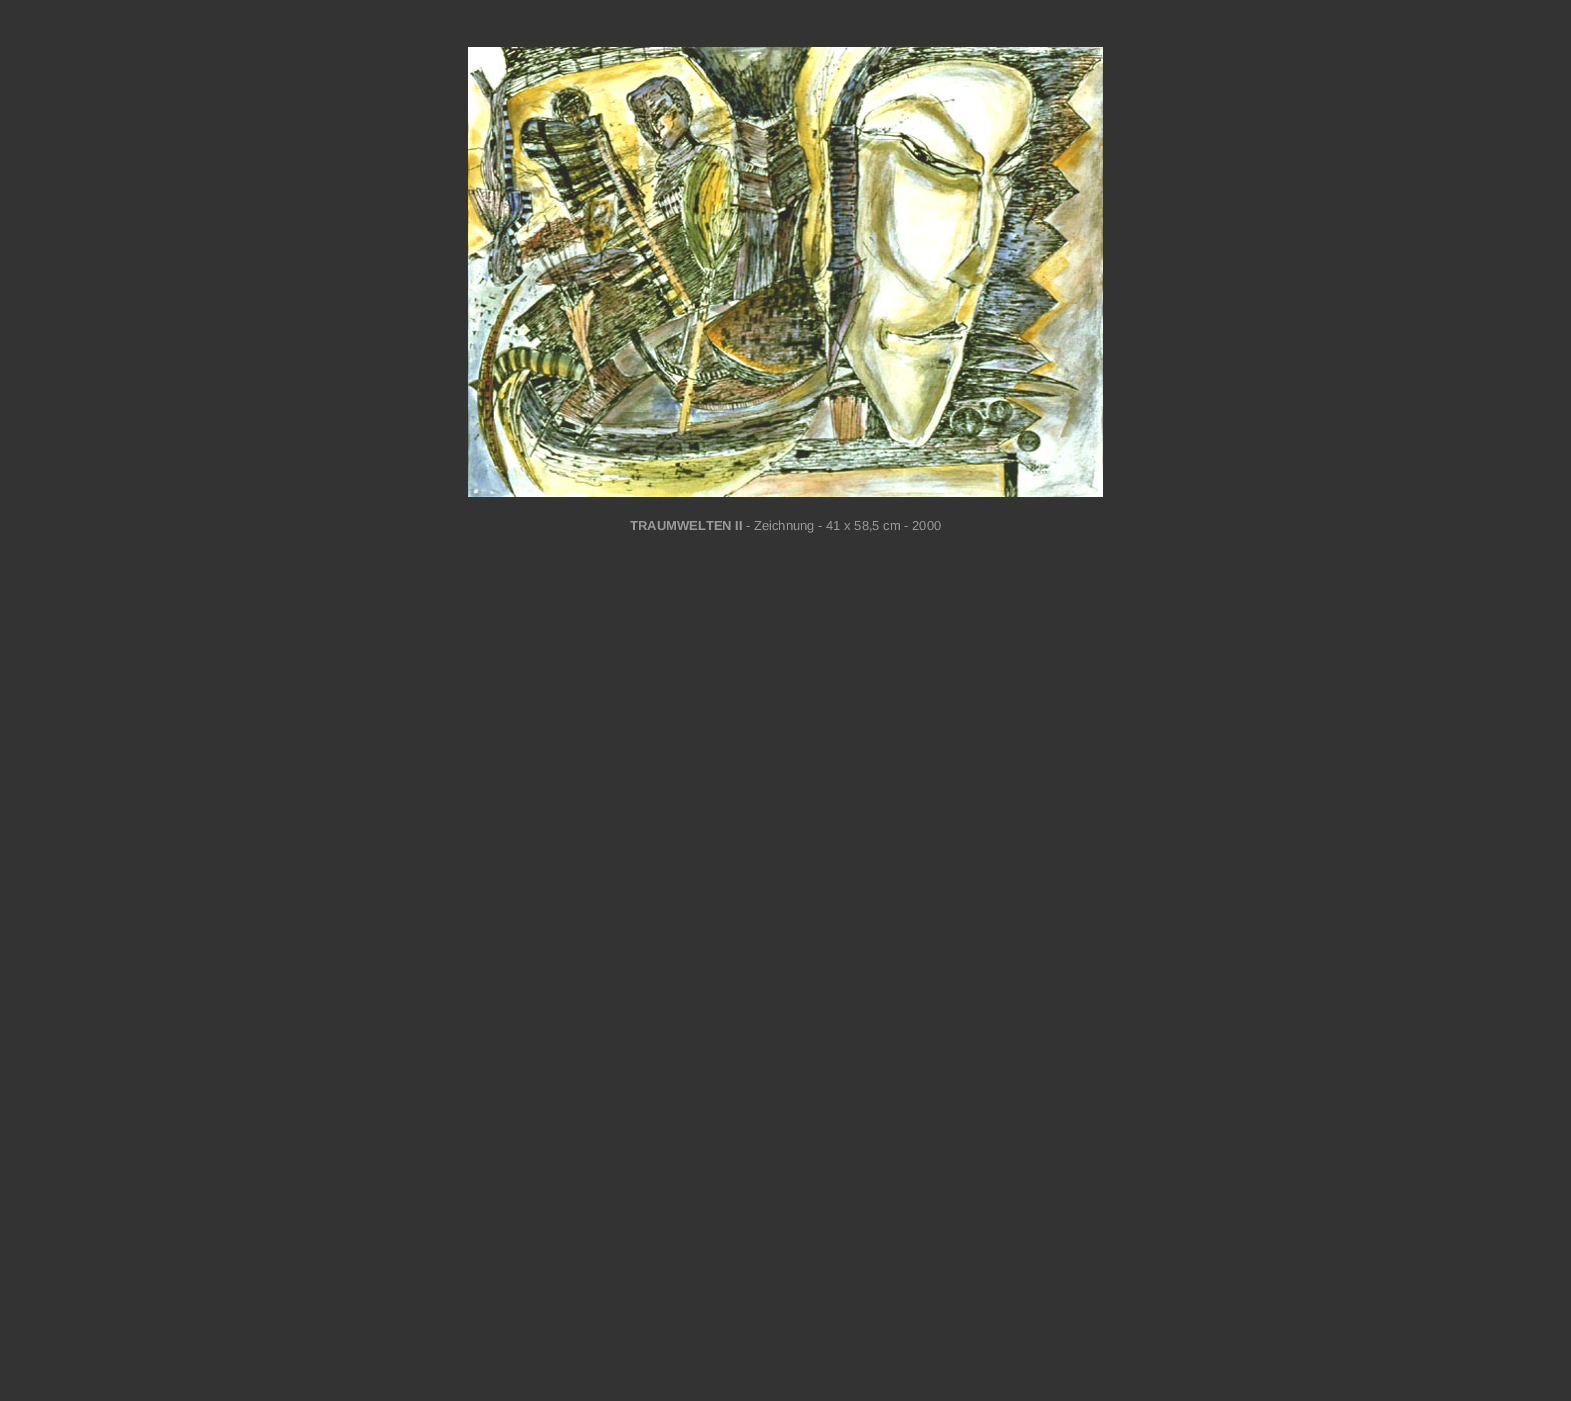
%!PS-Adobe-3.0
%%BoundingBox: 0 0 1571 1401
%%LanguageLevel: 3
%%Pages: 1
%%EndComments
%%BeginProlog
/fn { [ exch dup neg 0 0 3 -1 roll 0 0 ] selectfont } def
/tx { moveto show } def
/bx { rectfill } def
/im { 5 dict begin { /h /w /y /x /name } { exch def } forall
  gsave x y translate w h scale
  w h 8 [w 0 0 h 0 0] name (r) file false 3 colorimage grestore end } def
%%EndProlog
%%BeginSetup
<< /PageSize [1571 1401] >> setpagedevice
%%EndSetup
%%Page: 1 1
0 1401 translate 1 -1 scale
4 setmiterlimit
0.2 setgray
0 0 1571 1401 bx
(image0.raw) 468 47 635 450 im
/LiberationSans-Bold 13 fn
0.6 setgray
(TRAUMWELTEN II) 630 530 tx
/LiberationSans-Regular 13 fn
(- Zeichnung - 41 x 58,5 cm - 2000) 746 530 tx
showpage
%%EOF
